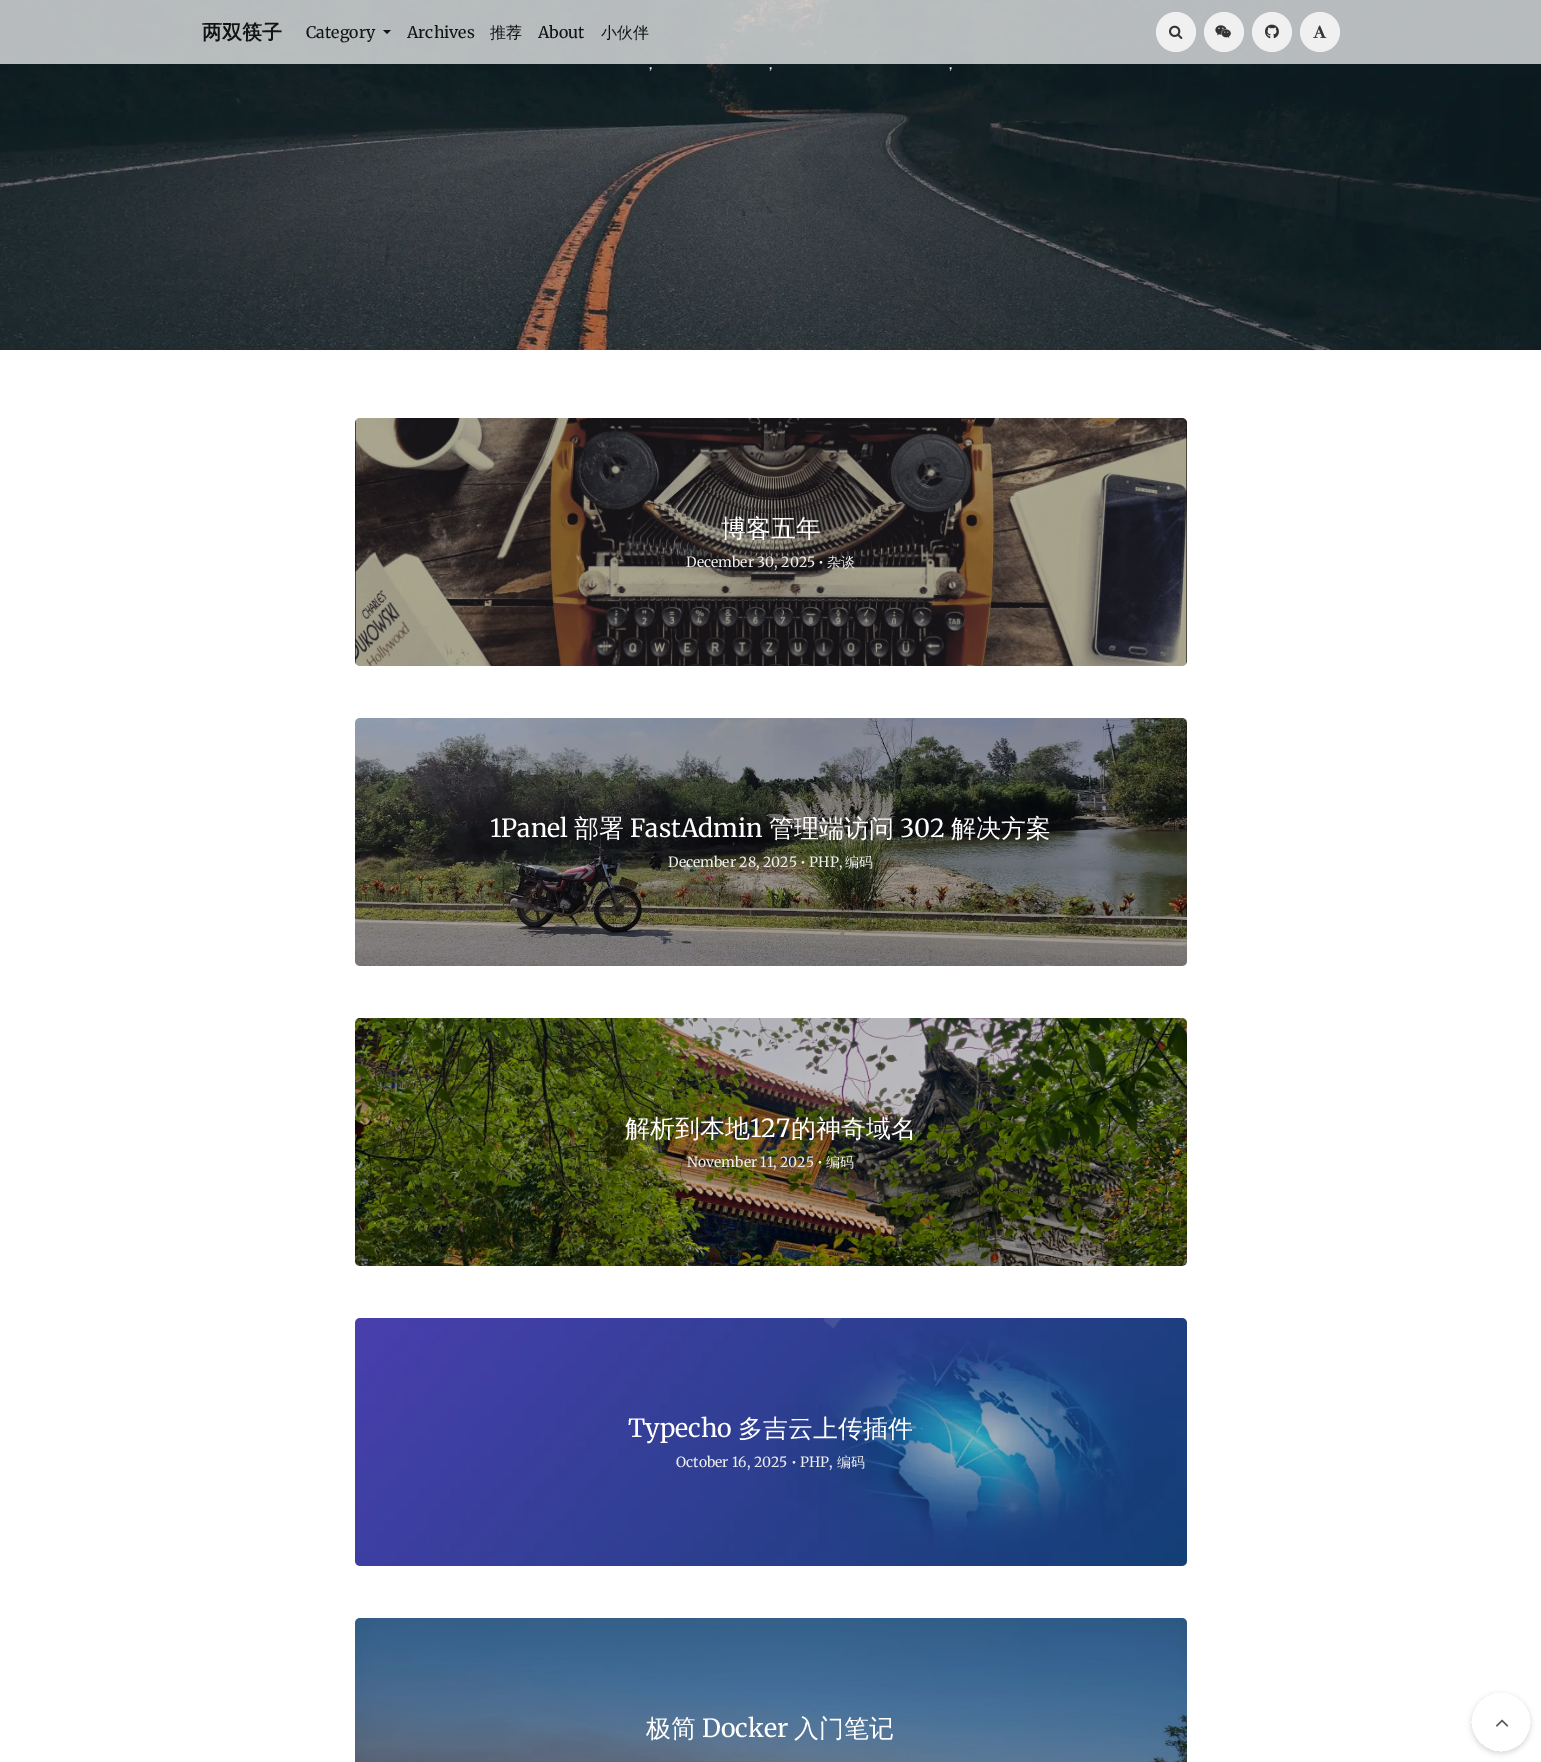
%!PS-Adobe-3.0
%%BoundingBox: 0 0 1541 1762
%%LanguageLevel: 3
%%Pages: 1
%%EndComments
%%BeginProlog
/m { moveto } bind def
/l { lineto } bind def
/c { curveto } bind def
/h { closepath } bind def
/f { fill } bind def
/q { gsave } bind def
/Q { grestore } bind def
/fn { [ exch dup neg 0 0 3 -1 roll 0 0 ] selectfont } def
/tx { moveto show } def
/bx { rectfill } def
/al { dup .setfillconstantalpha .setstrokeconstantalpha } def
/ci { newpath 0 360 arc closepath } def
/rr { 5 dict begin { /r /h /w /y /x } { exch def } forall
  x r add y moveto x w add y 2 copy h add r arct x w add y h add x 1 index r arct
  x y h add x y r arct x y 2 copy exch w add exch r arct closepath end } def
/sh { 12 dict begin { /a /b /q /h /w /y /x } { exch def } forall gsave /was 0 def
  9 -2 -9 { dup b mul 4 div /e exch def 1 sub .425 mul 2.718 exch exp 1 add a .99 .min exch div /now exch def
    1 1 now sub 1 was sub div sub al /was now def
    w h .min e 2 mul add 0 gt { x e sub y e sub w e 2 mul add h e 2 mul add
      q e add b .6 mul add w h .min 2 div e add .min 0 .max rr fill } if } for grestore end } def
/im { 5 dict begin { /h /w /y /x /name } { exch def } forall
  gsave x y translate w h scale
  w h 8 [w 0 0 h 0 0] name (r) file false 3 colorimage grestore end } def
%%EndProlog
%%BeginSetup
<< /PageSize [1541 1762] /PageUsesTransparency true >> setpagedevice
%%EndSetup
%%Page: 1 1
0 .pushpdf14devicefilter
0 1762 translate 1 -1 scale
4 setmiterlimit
1 setgray
0 0 1541 1762 bx
(image4.raw) 0 0 1541 350 im
0.7 al
0 0 1541 64 bx
/WenQuanYiZenHei-Bold 20 fn
1 al
0.071 0.075 0.075 setrgbcolor
(两双筷子) 202 39 tx
/Merriweather-Regular 16 fn
(Category) 306 38 tx
383 30 m 391 30 l 387 34 l h f
(Archives) 407 38 tx
/WenQuanYiZenHei-Medium 16 fn
(推荐) 490 38 tx
/Merriweather-Regular 16 fn
(About) 538 38 tx
/WenQuanYiZenHei-Medium 16 fn
(小伙伴) 601 38 tx
0.941 setgray
1176 32 20 ci f
(image0.raw) 1169 25 14 14 im
1224 32 20 ci f
(image1.raw) 1215 25 16 13 im
1272 32 20 ci f
(image2.raw) 1265 24 14 15 im
1320 32 20 ci f
(image3.raw) 1313 25 14 13 im
/WenQuanYiZenHei-Medium 15 fn
1 setgray
(，) 643 69 tx
(，) 763 69 tx
(，) 943 69 tx
(image5.raw) 355 418 832 248 im
0.25 al
0 setgray
355 418 832 248 5 rr f
/WenQuanYiZenHei-Medium 25 fn
1 al
1 setgray
(博客五年) 721 537 tx
/Merriweather-Regular 14 fn
0.933 setgray
(December 30, 2025 •) 686 567 tx
/WenQuanYiZenHei-Medium 14 fn
(杂谈) 827 567 tx
(image6.raw) 355 718 832 248 im
0.25 al
0 setgray
355 718 832 248 5 rr f
/Merriweather-Regular 25 fn
1 al
1 setgray
(1Panel) 490 837 tx
/WenQuanYiZenHei-Medium 25 fn
(部署) 574 837 tx
/Merriweather-Regular 25 fn
(FastAdmin) 630 837 tx
/WenQuanYiZenHei-Medium 25 fn
(管理端访问) 769 837 tx
/Merriweather-Regular 25 fn
(302) 900 837 tx
/WenQuanYiZenHei-Medium 25 fn
(解决方案) 951 837 tx
/Merriweather-Regular 14 fn
0.933 setgray
(December 28, 2025 • PHP,) 668 867 tx
/WenQuanYiZenHei-Medium 14 fn
(编码) 845 867 tx
(image7.raw) 355 1018 832 248 im
0.25 al
0 setgray
355 1018 832 248 5 rr f
/WenQuanYiZenHei-Medium 25 fn
1 al
1 setgray
(解析到本地) 625 1137 tx
/Merriweather-Regular 25 fn
(127) 750 1137 tx
/WenQuanYiZenHei-Medium 25 fn
(的神奇域名) 791 1137 tx
/Merriweather-Regular 14 fn
0.933 setgray
(November 11, 2025 •) 687 1167 tx
/WenQuanYiZenHei-Medium 14 fn
(编码) 826 1167 tx
(image8.raw) 355 1318 832 248 im
0.25 al
0 setgray
355 1318 832 248 5 rr f
/Merriweather-Regular 25 fn
1 al
1 setgray
(Typecho) 628 1437 tx
/WenQuanYiZenHei-Medium 25 fn
(多吉云上传插件) 738 1437 tx
/Merriweather-Regular 14 fn
0.933 setgray
(October 16, 2025 • PHP,) 676 1467 tx
/WenQuanYiZenHei-Medium 14 fn
(编码) 837 1467 tx
(image9.raw) 355 1618 832 144 im
0.25 al
0 setgray
355 1618 832 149 5 rr f
/WenQuanYiZenHei-Medium 25 fn
1 al
1 setgray
(极简) 646 1737 tx
/Merriweather-Regular 25 fn
(Docker) 702 1737 tx
/WenQuanYiZenHei-Medium 25 fn
(入门笔记) 794 1737 tx
q
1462 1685 m 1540 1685 l 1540 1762 l 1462 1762 l h 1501 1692 m 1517.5 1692 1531 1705.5 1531 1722 c 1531 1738.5 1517.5 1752 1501 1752 c 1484.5 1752 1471 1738.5 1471 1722 c 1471 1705.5 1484.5 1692 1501 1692 c h eoclip newpath
0 setgray
1471 1694 60 60 30 2.5 0.12 sh
Q
(image10.raw) 1496 1719 13 8 im
.poppdf14devicefilter showpage
%%EOF
